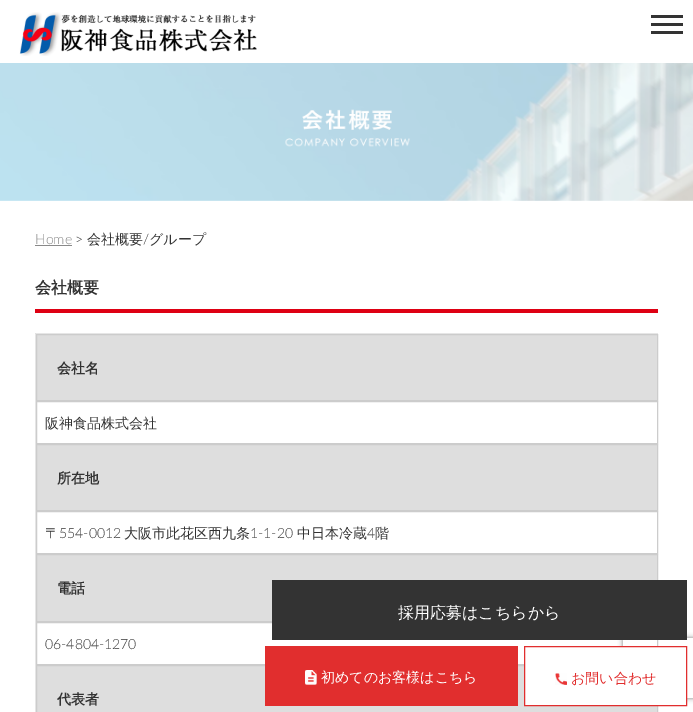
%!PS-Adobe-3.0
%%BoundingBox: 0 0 693 712
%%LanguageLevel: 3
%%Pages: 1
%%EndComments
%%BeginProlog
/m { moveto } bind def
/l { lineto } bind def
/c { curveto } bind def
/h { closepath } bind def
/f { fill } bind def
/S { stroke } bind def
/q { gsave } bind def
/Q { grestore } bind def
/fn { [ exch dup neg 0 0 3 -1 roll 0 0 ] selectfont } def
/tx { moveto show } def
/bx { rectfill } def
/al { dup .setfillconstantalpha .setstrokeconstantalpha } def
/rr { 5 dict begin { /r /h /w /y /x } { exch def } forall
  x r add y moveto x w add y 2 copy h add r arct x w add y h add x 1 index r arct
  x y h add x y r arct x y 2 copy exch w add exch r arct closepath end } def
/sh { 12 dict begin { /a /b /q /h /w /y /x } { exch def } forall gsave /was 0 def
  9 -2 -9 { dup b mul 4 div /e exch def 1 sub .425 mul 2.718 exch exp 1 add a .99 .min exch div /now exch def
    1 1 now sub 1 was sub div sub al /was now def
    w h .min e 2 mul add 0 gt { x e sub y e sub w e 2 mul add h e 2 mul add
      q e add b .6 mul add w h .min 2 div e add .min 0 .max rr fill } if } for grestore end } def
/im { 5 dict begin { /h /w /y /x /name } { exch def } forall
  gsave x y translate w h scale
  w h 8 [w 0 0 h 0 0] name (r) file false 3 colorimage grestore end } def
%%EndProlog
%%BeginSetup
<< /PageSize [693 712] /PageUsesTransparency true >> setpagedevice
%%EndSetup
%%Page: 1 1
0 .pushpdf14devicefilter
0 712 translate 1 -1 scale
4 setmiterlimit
1 setgray
0 0 693 712 bx
(image0.raw) 19 12 238 44 im
0.2 setgray
651 15 32 3 bx
651 23 32 3 bx
651 31 32 3 bx
(image1.raw) 0 63 693 138 im
/Lato-Light 14 fn
0.537 setgray
(Home) 35 244 tx
35 245 37 1 bx
0.2 setgray
(>) 75 244 tx
/WenQuanYiZenHei-Medium 14 fn
(会社概要) 87 244 tx
/Lato-Light 14 fn
(/) 143 244 tx
/WenQuanYiZenHei-Medium 14 fn
(グループ) 149 244 tx
0.871 0 0.075 setrgbcolor
35 309 623 4 bx
/WenQuanYiZenHei-Bold 16 fn
0.2 setgray
(会社概要) 35 293 tx
0.902 setgray
35 333 m 658 333 l 658 334 l 36 334 l h f
0.1 al
0 setgray
35 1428 m 35 333 l 36 334 l 36 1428 l h f
1 al
0.871 setgray
36.5 334.5 m 657.5 334.5 l 657.5 400.5 l 36.5 400.5 l h q f Q
0.8 setgray
S
/WenQuanYiZenHei-Bold 14 fn
0.2 setgray
(会社名) 57 373 tx
0.8 setgray
36.5 401.5 621 42 rectstroke
/WenQuanYiZenHei-Medium 14 fn
0.2 setgray
(阪神食品株式会社) 45 428 tx
0.871 setgray
36.5 444.5 m 657.5 444.5 l 657.5 510.5 l 36.5 510.5 l h q f Q
0.8 setgray
S
/WenQuanYiZenHei-Bold 14 fn
0.2 setgray
(所在地) 57 483 tx
0.8 setgray
36.5 511.5 621 42 rectstroke
/WenQuanYiZenHei-Medium 14 fn
0.2 setgray
(〒) 45 538 tx
/Lato-Light 14 fn
(554-0012) 59 538 tx
/WenQuanYiZenHei-Medium 14 fn
(大阪市此花区西九条) 124 538 tx
/Lato-Light 14 fn
(1-1-20) 250 538 tx
/WenQuanYiZenHei-Medium 14 fn
(中日本冷蔵) 297 538 tx
/Lato-Light 14 fn
(4) 367 538 tx
/WenQuanYiZenHei-Medium 14 fn
(階) 375 538 tx
0.871 setgray
36.5 554.5 m 657.5 554.5 l 657.5 621.5 l 36.5 621.5 l h q f Q
0.8 setgray
S
/WenQuanYiZenHei-Bold 14 fn
0.2 setgray
(電話) 57 593 tx
0.8 setgray
36.5 622.5 621 42 rectstroke
/Lato-Light 14 fn
0.2 setgray
(06-4804-1270) 45 649 tx
0.871 setgray
36.5 665.5 m 657.5 665.5 l 657.5 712.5 l 36.5 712.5 l h q f Q
0.8 setgray
S
/WenQuanYiZenHei-Bold 14 fn
0.2 setgray
(代表者) 57 704 tx
q
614 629 m 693 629 l 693 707 l 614 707 l h 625 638 m 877 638 l 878 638 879 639 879 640 c 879 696 l 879 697 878 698 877 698 c 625 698 l 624 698 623 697 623 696 c 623 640 l 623 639 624 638 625 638 c h eoclip newpath
0.502 setgray
623 638 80 60 2 2.5 1 sh
Q
272 580 415 60 bx
/WenQuanYiZenHei-Medium 16 fn
1 setgray
(採用応募はこちらから) 398 618 tx
0.882 0.18 0.18 setrgbcolor
265 646 253 60 bx
(image2.raw) 305 670 12 15 im
/WenQuanYiZenHei-Medium 14 fn
1 setgray
(初めてのお客様はこちら) 321 682 tx
524.5 646.5 m 686.5 646.5 l 686.5 705.5 l 524.5 705.5 l h q f Q
0.882 0.18 0.18 setrgbcolor
S
(image3.raw) 555 673 12 12 im
(お問い合わせ) 571 683 tx
.poppdf14devicefilter showpage
%%EOF
